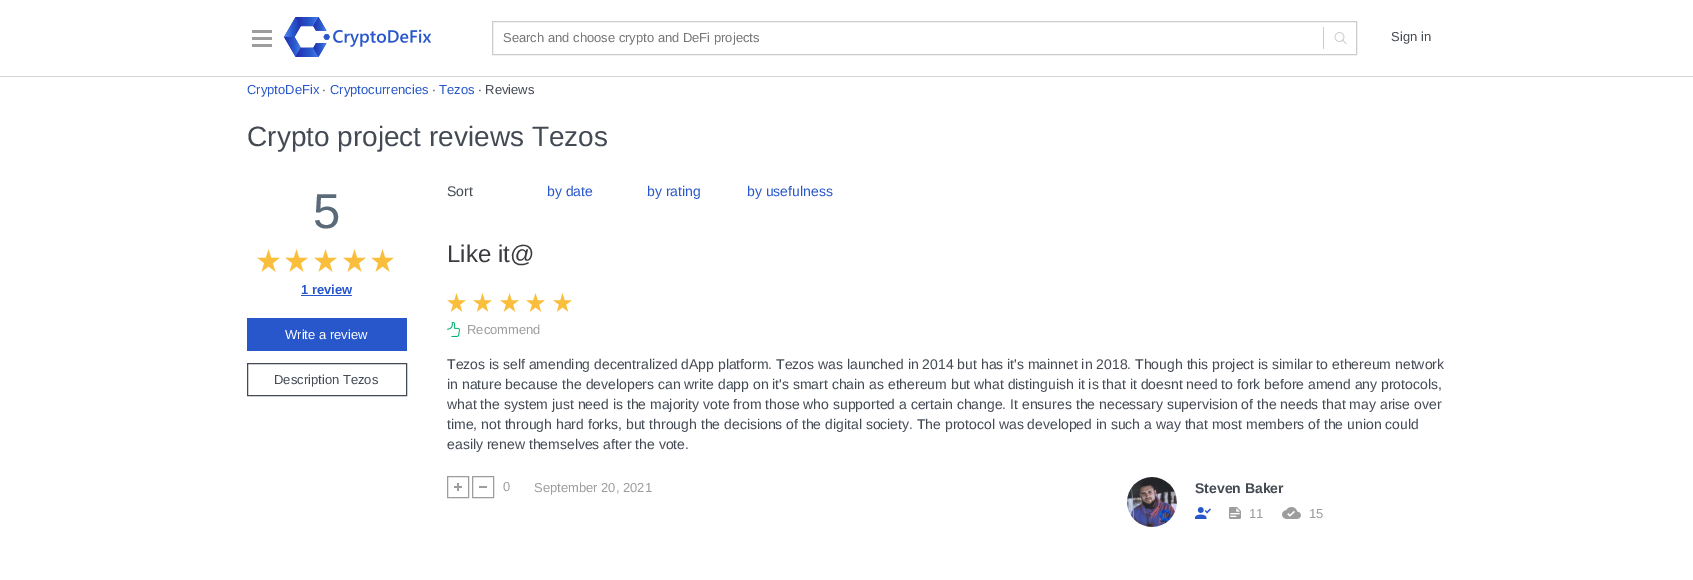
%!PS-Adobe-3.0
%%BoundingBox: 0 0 1693 580
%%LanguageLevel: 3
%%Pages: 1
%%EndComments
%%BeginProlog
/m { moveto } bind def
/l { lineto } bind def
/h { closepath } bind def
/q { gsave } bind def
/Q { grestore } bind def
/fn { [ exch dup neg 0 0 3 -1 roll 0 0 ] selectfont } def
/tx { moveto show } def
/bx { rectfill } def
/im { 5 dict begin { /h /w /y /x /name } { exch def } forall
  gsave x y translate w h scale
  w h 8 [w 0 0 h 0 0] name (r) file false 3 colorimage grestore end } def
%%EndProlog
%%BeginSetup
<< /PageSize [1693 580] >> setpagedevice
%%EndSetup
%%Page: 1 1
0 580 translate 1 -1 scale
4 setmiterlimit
1 setgray
0 0 1693 580 bx
0.616 setgray
252 30 20 3 bx
252 44 20 3 bx
252 37 20 3 bx
(image0.raw) 284 17 148 40 im
0.8 setgray
492.5 21.5 864 33 rectstroke
/LiberationSans-Regular 13 fn
0.459 setgray
(Search and choose crypto and DeFi projects) 503 42 tx
0.8 setgray
1323 27 1 22 bx
(image1.raw) 1334 32 13 12 im
0.263 0.29 0.329 setrgbcolor
(Sign in) 1391 41 tx
q 0 76 m 1693 76 l 1693 78 l 0 78 l h clip newpath
<< /ShadingType 2 /ColorSpace /DeviceRGB /Coords [847 76 847 78] /Extend [true true] /Function << /FunctionType 2 /Domain [0 1] /C0 [0.784 0.784 0.784] /C1 [1 1 1] /N 1 >> >> shfill Q
0.153 0.341 0.792 setrgbcolor
(CryptoDeFix) 247 94 tx
0.263 0.29 0.329 setrgbcolor
(∙) 322 94 tx
0.153 0.341 0.792 setrgbcolor
(Cryptocurrencies) 330 94 tx
0.263 0.29 0.329 setrgbcolor
(∙) 432 94 tx
0.153 0.341 0.792 setrgbcolor
(Tezos) 439 94 tx
0.263 0.29 0.329 setrgbcolor
(∙ Reviews) 478 94 tx
/LiberationSans-Regular 28 fn
(Crypto project reviews Tezos) 247 146 tx
/LiberationSans-Regular 49 fn
0.357 0.416 0.471 setrgbcolor
(5) 313 228 tx
(image2.raw) 257 249 23 23 im
(image2.raw) 285 249 23 23 im
(image2.raw) 314 249 23 23 im
(image2.raw) 343 249 23 23 im
(image2.raw) 371 249 23 23 im
/LiberationSans-Bold 13 fn
0.153 0.341 0.792 setrgbcolor
(1 review) 301 294 tx
301 295 51 1 bx
247 318 160 33 bx
/LiberationSans-Regular 13 fn
1 setgray
(Write a review) 285 339 tx
0.263 0.29 0.329 setrgbcolor
247.5 363.5 159 32 rectstroke
(Description Tezos) 274 384 tx
/LiberationSans-Regular 14 fn
(Sort) 447 196 tx
0.153 0.341 0.792 setrgbcolor
(by date) 547 196 tx
(by rating) 647 196 tx
(by usefulness) 747 196 tx
/LiberationSans-Regular 24 fn
0.231 0.235 0.251 setrgbcolor
(Like it@) 447 262 tx
(image3.raw) 447 293 19 19 im
(image3.raw) 473 293 19 19 im
(image3.raw) 500 293 19 19 im
(image3.raw) 526 293 19 19 im
(image3.raw) 553 293 19 19 im
(image4.raw) 447 322 13 15 im
/LiberationSans-Regular 13 fn
0.616 setgray
(Recommend) 467 334 tx
/LiberationSans-Regular 14 fn
0.263 0.29 0.329 setrgbcolor
(Tezos is self amending decentralized dApp platform. Tezos was launched in 2014 but has it's mainnet in 2018. Though this project is similar to ethereum network) 447 369 tx
(in nature because the developers can write dapp on it's smart chain as ethereum but what distinguish it is that it doesnt need to fork before amend any protocols,) 447 389 tx
(what the system just need is the majority vote from those who supported a certain change. It ensures the necessary supervision of the needs that may arise over) 447 409 tx
(time, not through hard forks, but through the decisions of the digital society. The protocol was developed in such a way that most members of the union could) 447 429 tx
(easily renew themselves after the vote.) 447 449 tx
0.616 setgray
447.5 476.5 21 21 rectstroke
454 486 8 2 bx
457 483 2 8 bx
472.5 476.5 21 21 rectstroke
479 486 8 2 bx
/LiberationSans-Regular 13 fn
(0) 503 491 tx
(September 20, 2021) 534 492 tx
(image5.raw) 1127 477 50 50 im
/LiberationSans-Bold 14 fn
0.263 0.29 0.329 setrgbcolor
(Steven Baker) 1195 493 tx
(image6.raw) 1195 507 16 12 im
(image7.raw) 1229 507 12 12 im
/LiberationSans-Regular 13 fn
0.616 setgray
(11) 1249 518 tx
(image8.raw) 1282 507 19 12 im
(15) 1309 518 tx
showpage
%%EOF
